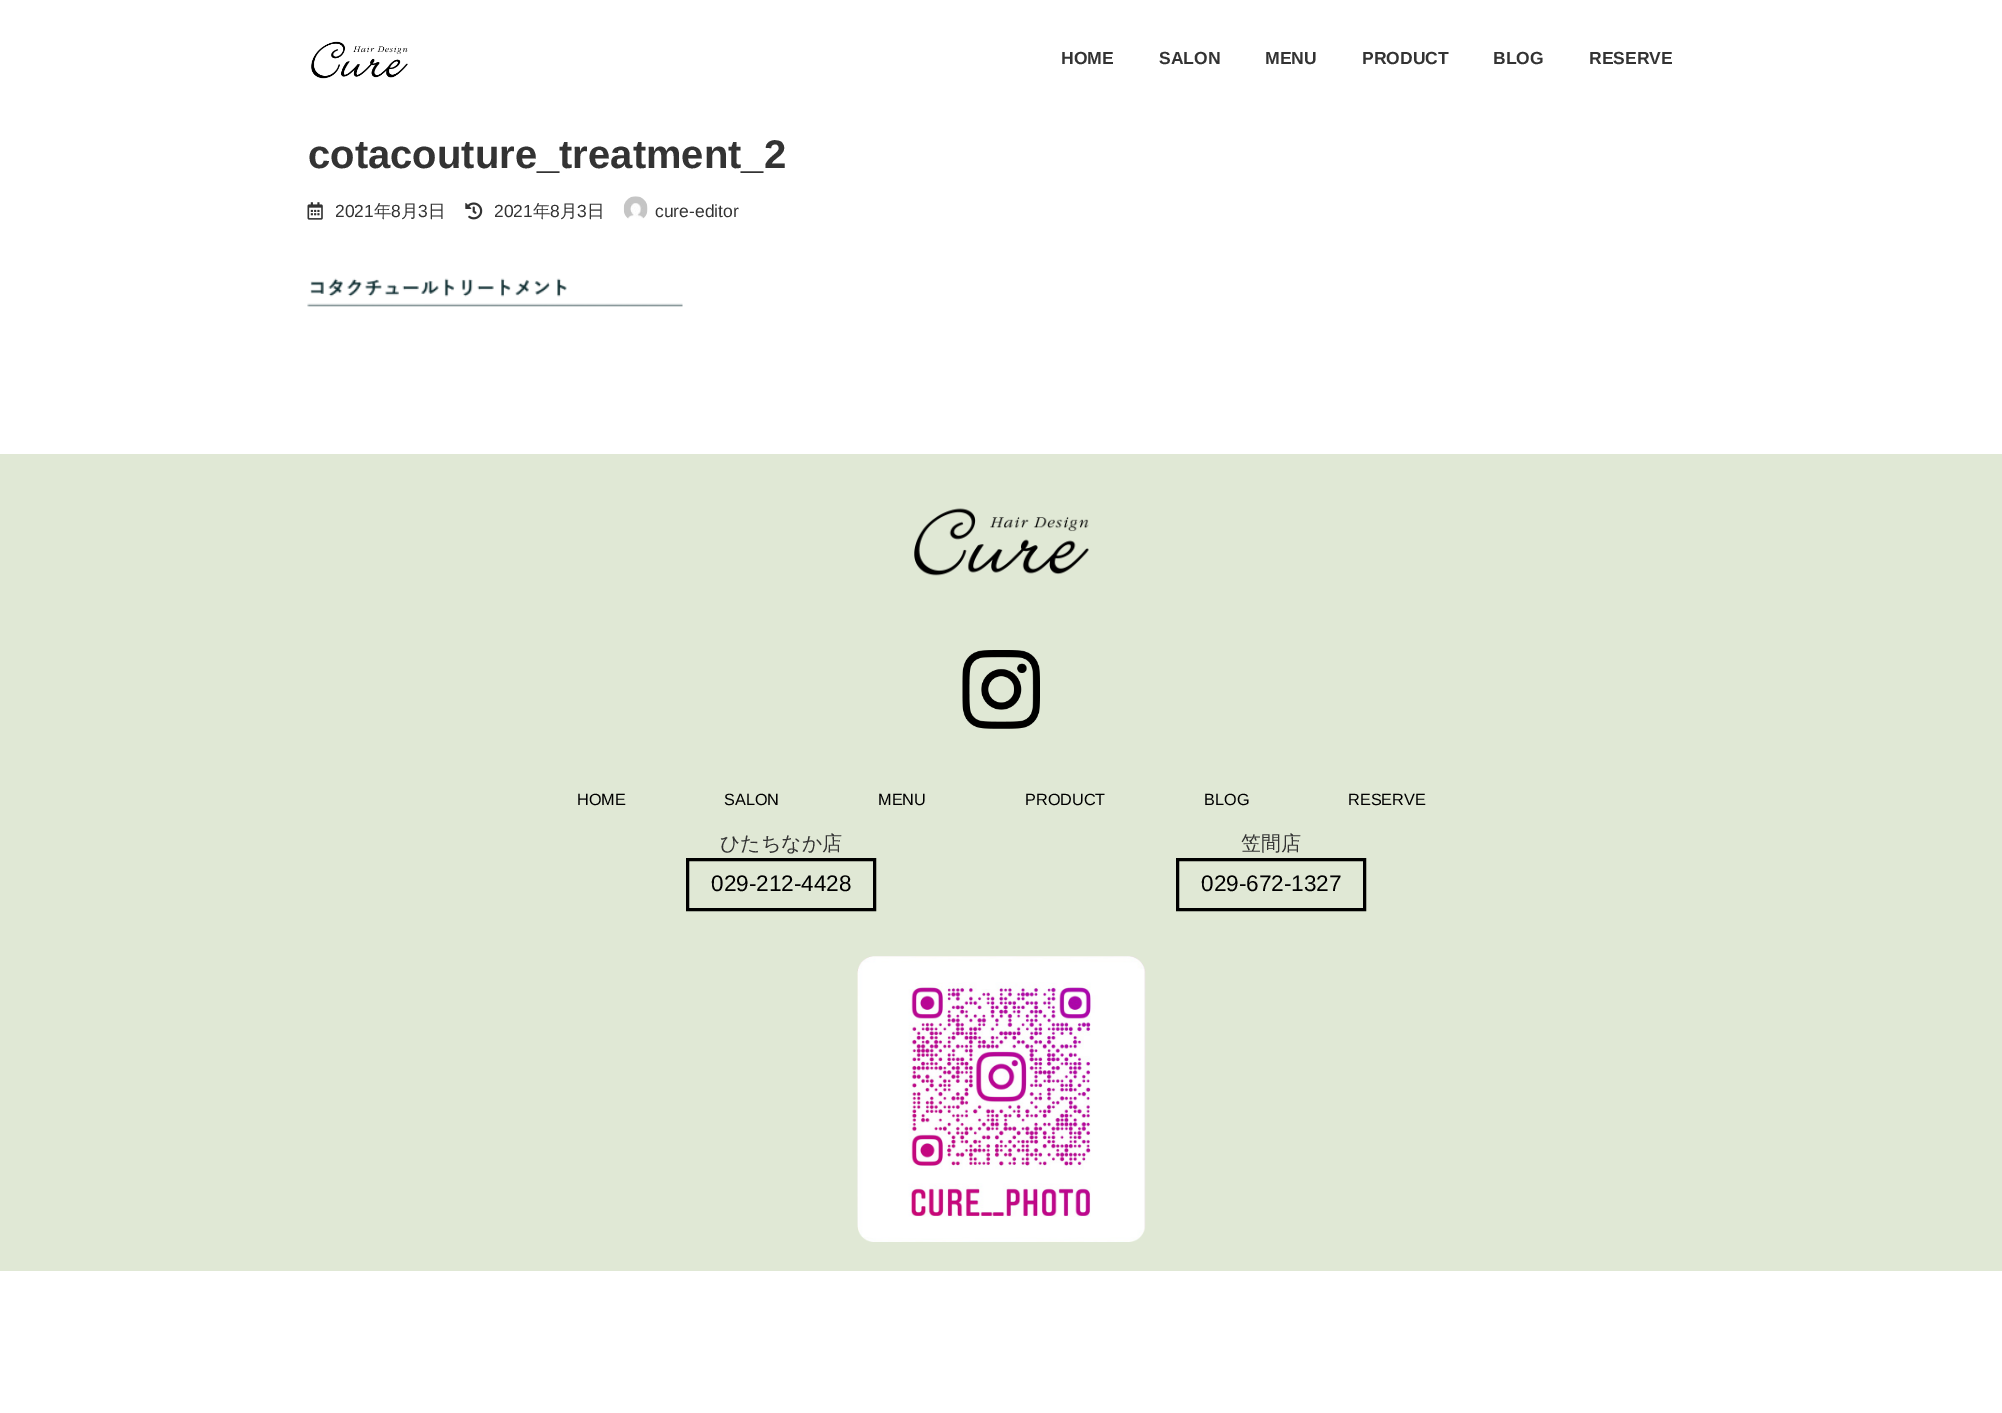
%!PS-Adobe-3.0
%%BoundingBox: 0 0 2002 1413
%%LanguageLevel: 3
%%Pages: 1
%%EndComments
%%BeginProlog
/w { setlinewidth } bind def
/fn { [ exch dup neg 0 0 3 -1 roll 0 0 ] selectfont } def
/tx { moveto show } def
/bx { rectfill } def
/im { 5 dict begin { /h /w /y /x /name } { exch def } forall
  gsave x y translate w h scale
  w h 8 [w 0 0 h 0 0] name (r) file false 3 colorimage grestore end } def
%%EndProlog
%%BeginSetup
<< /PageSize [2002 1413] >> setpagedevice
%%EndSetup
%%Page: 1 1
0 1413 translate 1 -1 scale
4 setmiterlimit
1 setgray
0 0 2002 1413 bx
(image0.raw) 311 41 97 38 im
/LiberationSans-Bold 17.5 fn
0.2 setgray
(HOME) 1061 64 tx
(SALON) 1159 64 tx
(MENU) 1265 64 tx
(PRODUCT) 1362 64 tx
(BLOG) 1493 64 tx
(RESERVE) 1589 64 tx
/LiberationSans-Bold 40 fn
(cotacouture_treatment_2) 308 168 tx
(image1.raw) 307 202 16 18 im
/LiberationSans-Regular 17.5 fn
(2021) 335 217 tx
/WenQuanYiZenHei-Medium 17.5 fn
(年) 374 217 tx
/LiberationSans-Regular 17.5 fn
(8) 391 217 tx
/WenQuanYiZenHei-Medium 17.5 fn
(月) 401 217 tx
/LiberationSans-Regular 17.5 fn
(3) 418 217 tx
/WenQuanYiZenHei-Medium 17.5 fn
(日) 428 217 tx
(image2.raw) 465 202 18 18 im
/LiberationSans-Regular 17.5 fn
(2021) 494 217 tx
/WenQuanYiZenHei-Medium 17.5 fn
(年) 533 217 tx
/LiberationSans-Regular 17.5 fn
(8) 550 217 tx
/WenQuanYiZenHei-Medium 17.5 fn
(月) 560 217 tx
/LiberationSans-Regular 17.5 fn
(3) 577 217 tx
/WenQuanYiZenHei-Medium 17.5 fn
(日) 587 217 tx
(image3.raw) 623 196 25 23 im
/LiberationSans-Regular 17.5 fn
(cure-editor) 655 217 tx
(image4.raw) 307 278 376 29 im
0.878 0.91 0.835 setrgbcolor
0 454 2002 817 bx
(image5.raw) 914 508 175 68 im
(image6.raw) 962 650 78 79 im
/LiberationSans-Regular 16.25 fn
0 setgray
(HOME) 577 805 tx
(SALON) 724 805 tx
(MENU) 878 805 tx
(PRODUCT) 1025 805 tx
(BLOG) 1204 805 tx
(RESERVE) 1348 805 tx
/WenQuanYiZenHei-Medium 20 fn
0.2 setgray
(ひたちなか店) 720 850 tx
0 setgray
3 w
687.5 859.5 187 50 rectstroke
/LiberationSans-Regular 22.5 fn
(029-212-4428) 711 891 tx
/WenQuanYiZenHei-Medium 20 fn
0.2 setgray
(笠間店) 1241 850 tx
0 setgray
1177.5 859.5 187 50 rectstroke
/LiberationSans-Regular 22.5 fn
(029-672-1327) 1201 891 tx
(image7.raw) 857 956 289 286 im
showpage
%%EOF
